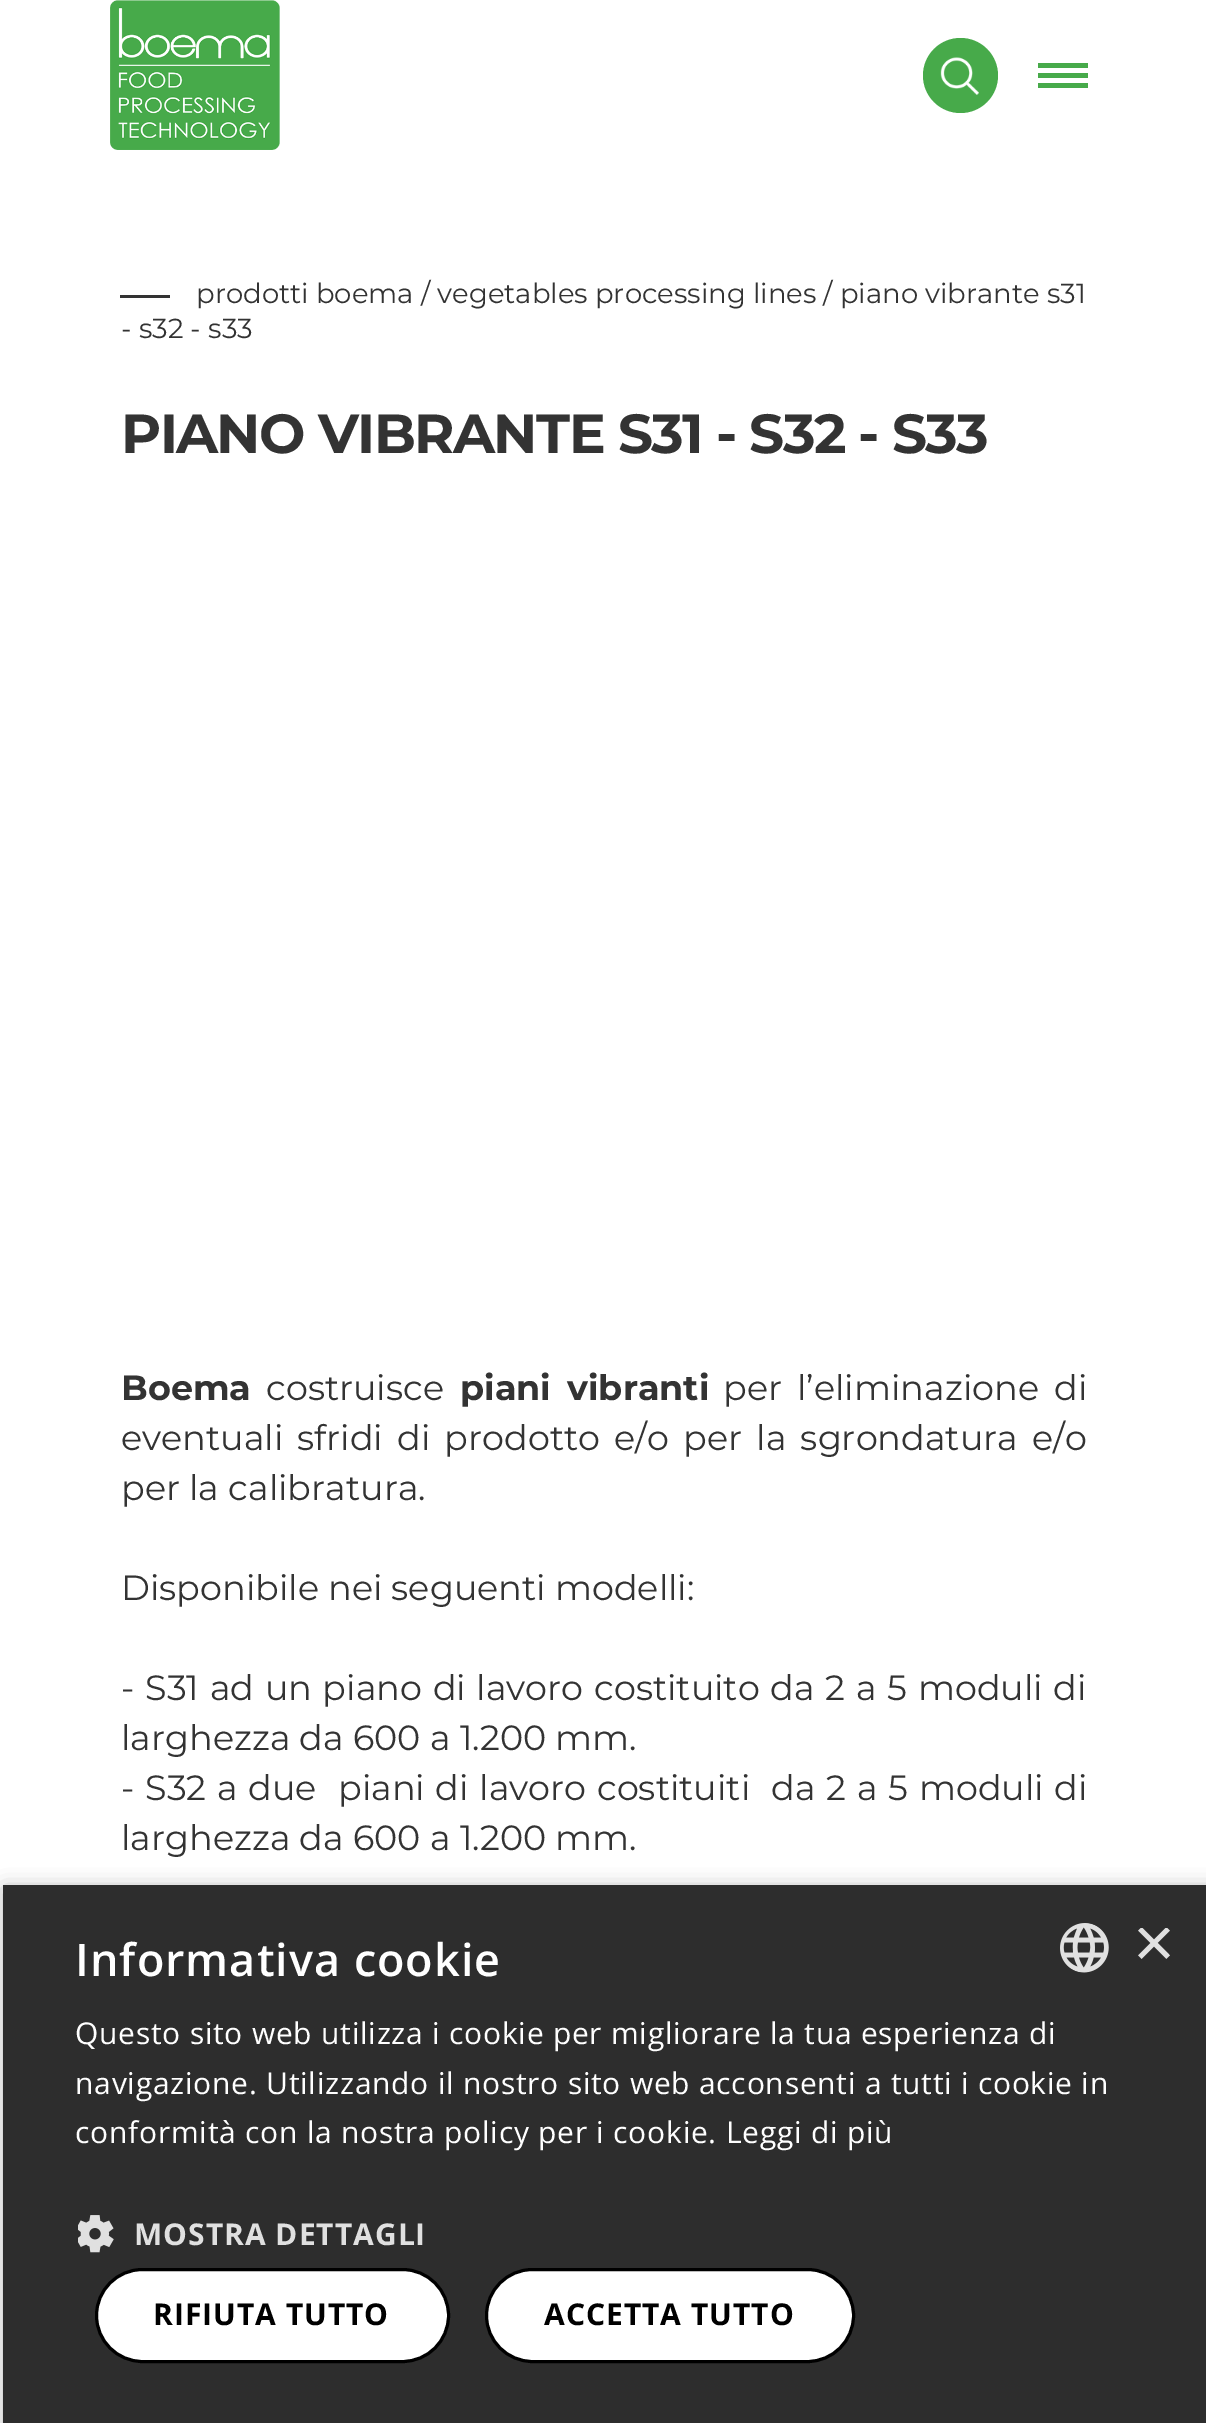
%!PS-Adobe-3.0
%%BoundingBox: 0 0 1206 2423
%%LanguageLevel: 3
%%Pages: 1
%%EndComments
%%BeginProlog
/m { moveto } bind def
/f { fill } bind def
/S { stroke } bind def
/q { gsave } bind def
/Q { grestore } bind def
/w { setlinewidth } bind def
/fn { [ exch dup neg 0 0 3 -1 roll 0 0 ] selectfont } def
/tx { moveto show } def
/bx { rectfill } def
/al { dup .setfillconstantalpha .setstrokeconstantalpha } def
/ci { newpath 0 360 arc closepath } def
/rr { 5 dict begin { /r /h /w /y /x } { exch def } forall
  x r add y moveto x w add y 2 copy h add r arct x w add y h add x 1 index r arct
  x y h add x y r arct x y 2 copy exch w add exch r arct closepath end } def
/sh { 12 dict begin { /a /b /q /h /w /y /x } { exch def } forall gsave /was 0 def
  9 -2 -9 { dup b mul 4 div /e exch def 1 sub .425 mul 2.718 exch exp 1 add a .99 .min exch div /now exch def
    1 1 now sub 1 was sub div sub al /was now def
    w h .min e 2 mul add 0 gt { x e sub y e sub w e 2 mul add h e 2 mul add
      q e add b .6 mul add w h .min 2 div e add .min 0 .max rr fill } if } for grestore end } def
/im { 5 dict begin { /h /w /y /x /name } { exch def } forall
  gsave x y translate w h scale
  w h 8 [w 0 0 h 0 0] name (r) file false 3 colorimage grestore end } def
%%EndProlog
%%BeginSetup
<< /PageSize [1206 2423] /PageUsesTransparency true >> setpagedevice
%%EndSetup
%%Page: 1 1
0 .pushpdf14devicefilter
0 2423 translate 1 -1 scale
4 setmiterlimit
1 setgray
0 0 1206 2423 bx
(image0.raw) 110 0 170 150 im
0.278 0.667 0.29 setrgbcolor
960.5 75.5 37.5 ci f
(image1.raw) 940 57 39 38 im
1038 73 50 5 bx
1038 63 50 5 bx
1038 83 50 5 bx
0.2 setgray
120 295 50 3 bx
/Montserrat-Regular 27.5 fn
(prodotti boema / vegetables processing lines / piano vibrante s31) 196 303 tx
(- s32 - s33) 121 338 tx
/Montserrat-Bold 55 fn
121 453 m -1.65 0 (PIANO VIBRANTE S31 - S32 - S33) ashow
/Montserrat-Bold 35 fn
(Boema) 121 1400 tx
/Montserrat-Regular 35 fn
(costruisce) 266 1400 tx
/Montserrat-Bold 35 fn
460 1400 m 6 0 32 (piani vibranti) widthshow
/Montserrat-Regular 35 fn
723 1400 m 6 0 32 (per l’eliminazione di) widthshow
121 1450 m 5 0 32 (eventuali sfridi di prodotto e/o per la sgrondatura e/o) widthshow
(per la calibratura.) 121 1500 tx
(Disponibile nei seguenti modelli:) 121 1600 tx
121 1700 m 1.5 0 32 (- S31 ad un piano di lavoro costituito da 2 a 5 moduli di) widthshow
(larghezza da 600 a 1.200 mm.) 121 1750 tx
121 1800 m 1.5 0 32 (- S32 a due  piani di lavoro costituiti  da 2 a 5 moduli di) widthshow
(larghezza da 600 a 1.200 mm.) 121 1850 tx
0 setgray
5 1890 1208 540 0 10 0.35 sh
0.176 setgray
3 1885 1203 538 bx
/OpenSans-SemiBold 45 fn
1 setgray
75 1976 m 1 0 (Informativa cookie) ashow
(image2.raw) 1060 1923 49 50 im
q
1135 1928 38 37 rectclip
/LiberationSans-Regular 72 fn
0.878 setgray
(×) 1133 1967 tx
Q
/OpenSans-Regular 30 fn
75 2044 m 0.75 0 (Questo sito web utilizza i cookie per migliorare la tua esperienza di) ashow
75 2094 m 0.75 0 (navigazione. Utilizzando il nostro sito web acconsenti a tutti i cookie in) ashow
75 2143 m 0.75 0 (conformità con la nostra policy per i cookie. Leggi di più) ashow
(image3.raw) 78 2215 36 38 im
/OpenSans-Bold 30 fn
0.878 setgray
134 2245 m 1 0 (MOSTRA DETTAGLI) ashow
1 setgray
96.5 2269.5 352 92 46 rr q f Q
0 setgray
3 w
S
153 2325 m 1 0 (RIFIUTA TUTTO) ashow
1 setgray
486.5 2269.5 367 92 46 rr q f Q
0 setgray
S
544 2325 m 1 0 (ACCETTA TUTTO) ashow
.poppdf14devicefilter showpage
%%EOF
